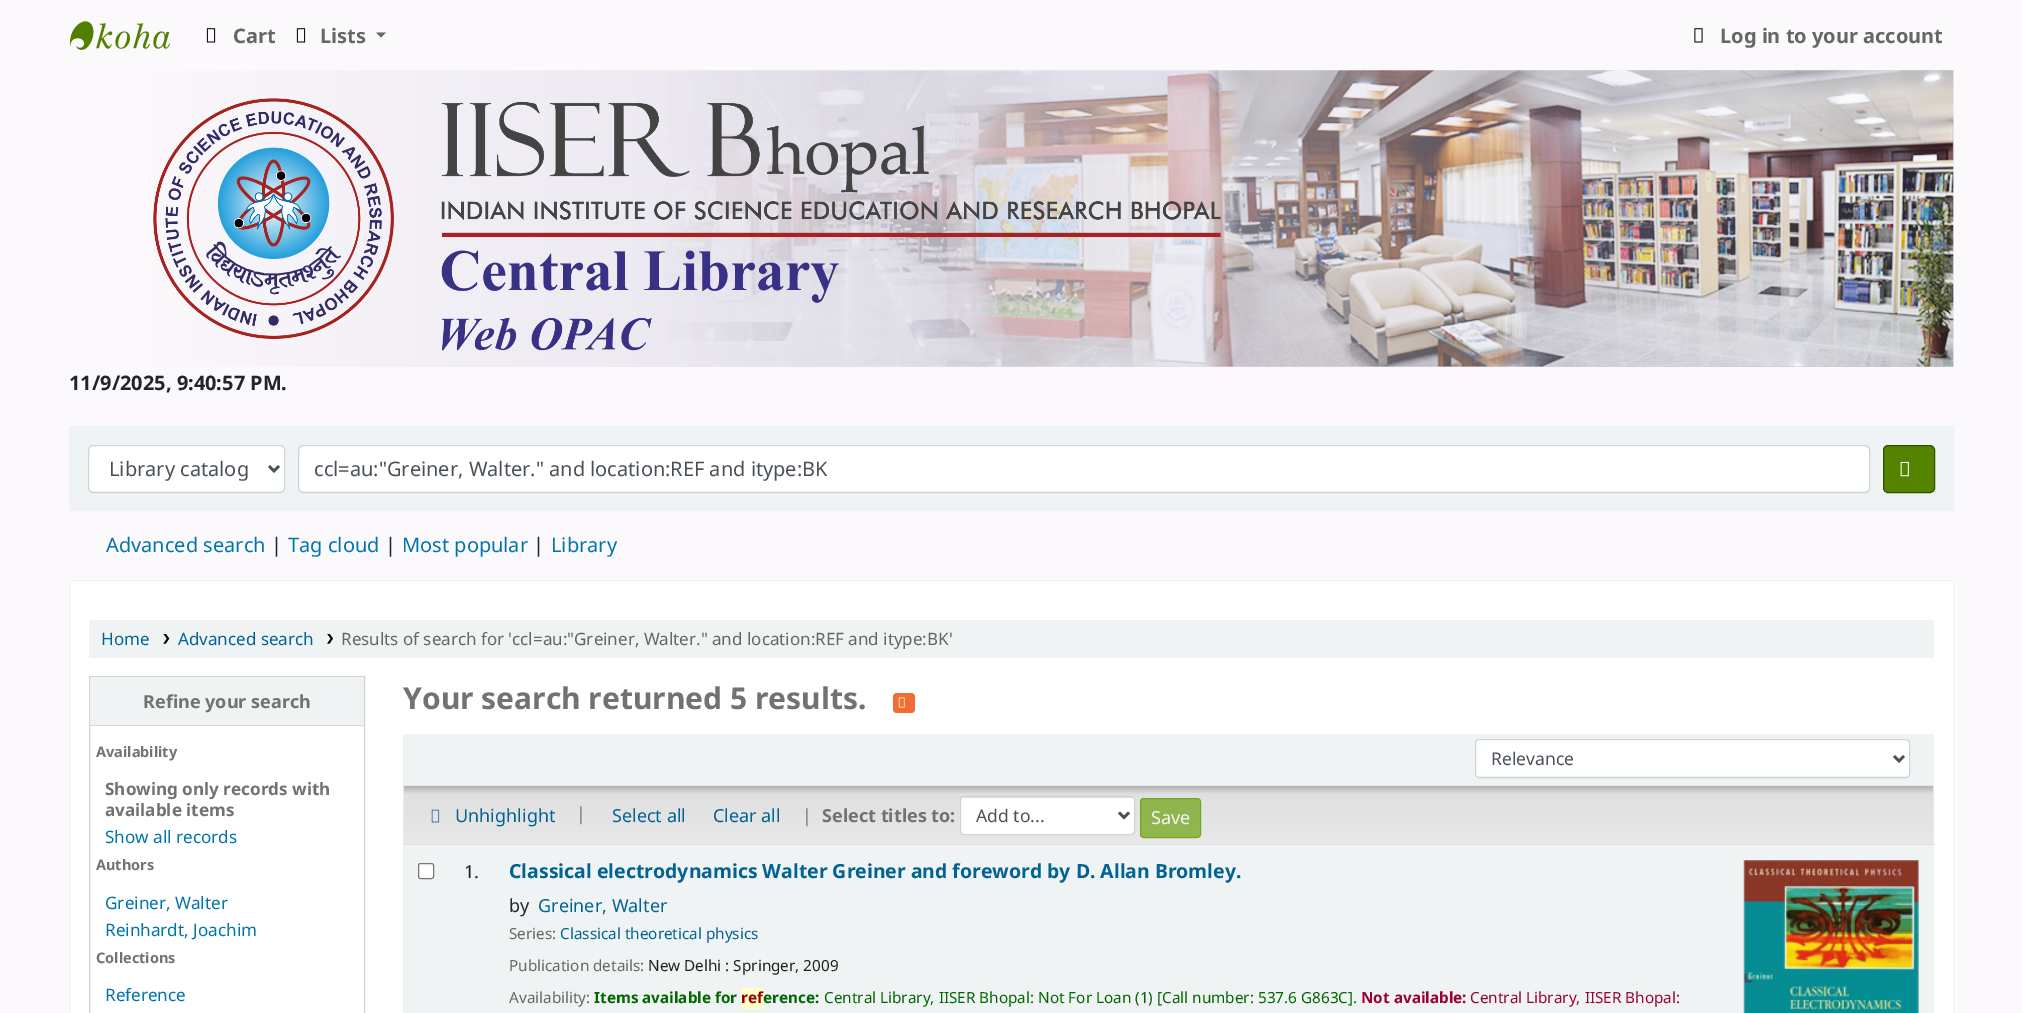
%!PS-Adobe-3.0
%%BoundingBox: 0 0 2022 1013
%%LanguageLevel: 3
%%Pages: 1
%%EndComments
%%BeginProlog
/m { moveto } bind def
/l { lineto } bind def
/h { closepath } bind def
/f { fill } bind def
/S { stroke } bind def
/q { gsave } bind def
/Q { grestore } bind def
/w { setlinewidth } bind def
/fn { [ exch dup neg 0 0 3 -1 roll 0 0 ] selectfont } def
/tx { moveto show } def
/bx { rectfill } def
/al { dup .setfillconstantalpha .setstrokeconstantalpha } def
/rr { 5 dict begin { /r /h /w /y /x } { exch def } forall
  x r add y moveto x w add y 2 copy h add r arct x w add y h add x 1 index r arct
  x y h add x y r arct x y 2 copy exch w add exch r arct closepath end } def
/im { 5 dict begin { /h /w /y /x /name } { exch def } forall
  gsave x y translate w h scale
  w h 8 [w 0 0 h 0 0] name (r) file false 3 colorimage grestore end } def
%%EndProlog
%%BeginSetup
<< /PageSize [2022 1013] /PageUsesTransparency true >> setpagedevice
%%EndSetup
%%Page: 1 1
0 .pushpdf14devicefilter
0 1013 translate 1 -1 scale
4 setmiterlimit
0.988 0.976 0.988 setrgbcolor
0 0 2022 1013 bx
(image0.raw) 70 21 100 29 im
(image1.raw) 206 28 10 15 im
/NotoSans-Bold 20 fn
0.4 setgray
(Cart) 233 43 tx
(image1.raw) 296 28 10 15 im
(Lists) 320 43 tx
376 32.5 m 386 32.5 l 381 37.5 l h f
(image2.raw) 1694 28 9 15 im
(Log in to your account) 1720 43 tx
(image3.raw) 153 70 1801 297 im
0.129 0.145 0.161 setrgbcolor
(11/9/2025, 9:40:57 PM.) 69 390 tx
0.941 0.953 0.953 setrgbcolor
69 426 1885 85 bx
1 setgray
89 446 195 45 4 rr f
0.808 0.831 0.855 setrgbcolor
88.5 445.5 196 47 4.5 rr S
0.286 0.314 0.341 setrgbcolor
2.5 w
269 466 m 274 471 l 279 466 l S
/NotoSans-Regular 20 fn
(Library catalog) 109 476 tx
1 setgray
299 446 1570 45 4 rr f
0.808 0.831 0.855 setrgbcolor
1 w
298.5 445.5 1571 47 4.5 rr S
0.286 0.314 0.341 setrgbcolor
(ccl=au:"Greiner, Walter." and location:REF and itype:BK) 314 476 tx
0.329 0.514 0 setrgbcolor
1883.5 445.5 51 47 4.5 rr q f Q
0.2 0.314 0 setrgbcolor
S
(image4.raw) 1900 461 9 16 im
0 0.455 0.678 setrgbcolor
(Advanced search) 106 552 tx
0.129 0.145 0.161 setrgbcolor
(|) 271 552 tx
0 0.455 0.678 setrgbcolor
(Tag cloud) 288 552 tx
0.129 0.145 0.161 setrgbcolor
(|) 385 552 tx
0 0.455 0.678 setrgbcolor
(Most popular) 402 552 tx
0.129 0.145 0.161 setrgbcolor
(|) 533 552 tx
0 0.455 0.678 setrgbcolor
(Library) 551 552 tx
1 setgray
69.5 580.5 m 1953.5 580.5 l 1953.5 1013.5 l 69.5 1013.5 l h q f Q
0.941 0.953 0.953 setrgbcolor
S
89 620 1845 38 bx
/NotoSans-Regular 17 fn
0 0.388 0.58 setrgbcolor
(Home) 101 645 tx
(image5.raw) 163 634 7 10 im
(Advanced search) 178 645 tx
(image6.raw) 327 634 6 10 im
0.4 setgray
(Results of search for 'ccl=au:"Greiner, Walter." and location:REF and itype:BK') 341 645 tx
0.824 0.824 0.812 setrgbcolor
89.5 676.5 275 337 rectstroke
0.941 0.953 0.953 setrgbcolor
90 678 274 47 bx
0.847 setgray
90 725 274 1 bx
/NotoSans-Bold 18 fn
0.447 setgray
(Refine your search) 143 708 tx
/NotoSans-Bold 14.5 fn
(Availability) 96 757 tx
/NotoSans-Bold 17.1 fn
(Showing only records with) 105 795 tx
(available items) 105 816 tx
/NotoSans-Regular 17.1 fn
0 0.455 0.678 setrgbcolor
(Show all records) 105 843 tx
/NotoSans-Bold 14.5 fn
0.447 setgray
(Authors) 96 870 tx
/NotoSans-Regular 17.1 fn
0 0.455 0.678 setrgbcolor
(Greiner, Walter) 105 909 tx
(Reinhardt, Joachim) 105 936 tx
/NotoSans-Bold 14.5 fn
0.447 setgray
(Collections) 96 963 tx
/NotoSans-Regular 17.1 fn
0 0.455 0.678 setrgbcolor
(Reference) 105 1001 tx
/NotoSans-Bold 30 fn
0.447 setgray
(Your search returned 5 results.) 403 709 tx
0.941 0.427 0.204 setrgbcolor
893 693 22 20 4 rr f
(image7.raw) 898 697 7 11 im
0.941 0.953 0.953 setrgbcolor
403 734 1531 51 bx
1 setgray
1476 740 433 36 2.5 rr f
0.808 0.831 0.855 setrgbcolor
1475.5 739.5 434 38 3.5 rr S
0.286 0.314 0.341 setrgbcolor
2.5 w
1894 756 m 1899 761 l 1904 756 l S
/NotoSans-Regular 17.5 fn
(Relevance) 1491 765 tx
q 403 785 m 1934 785 l 1934 786 l 403 786 l h clip newpath
<< /ShadingType 2 /ColorSpace /DeviceRGB /Coords [1168 729 1168 786] /Extend [true true] /Function << /FunctionType 3 /Domain [0 1] /Functions [<< /FunctionType 2 /Domain [0 1] /C0 [0.698 0.698 0.698] /C1 [0.878 0.878 0.878] /N 1 >> << /FunctionType 2 /Domain [0 1] /C0 [0.878 0.878 0.878] /C1 [0.91 0.91 0.91] /N 1 >>] /Bounds [0.14] /Encode [0 1 0 1] >> >> shfill Q
q 404 786 m 1933 786 l 1933 844 l 404 844 l h clip newpath
<< /ShadingType 2 /ColorSpace /DeviceRGB /Coords [1168 786 1168 844] /Extend [true true] /Function << /FunctionType 3 /Domain [0 1] /Functions [<< /FunctionType 2 /Domain [0 1] /C0 [0.698 0.698 0.698] /C1 [0.878 0.878 0.878] /N 1 >> << /FunctionType 2 /Domain [0 1] /C0 [0.878 0.878 0.878] /C1 [0.91 0.91 0.91] /N 1 >>] /Bounds [0.14] /Encode [0 1 0 1] >> >> shfill Q
0.91 setgray
1933 785 1 59 bx
403 785 1 59 bx
(image8.raw) 431 809 9 14 im
/NotoSans-Regular 18 fn
0 0.388 0.58 setrgbcolor
(Unhighlight) 455 822 tx
0.424 0.459 0.49 setrgbcolor
(|) 576 820 tx
0 0.388 0.58 setrgbcolor
(Select all) 612 822 tx
(Clear all) 713 822 tx
0.424 0.459 0.49 setrgbcolor
(|) 802 822 tx
/NotoSans-Bold 18 fn
0.447 setgray
(Select titles to:) 822 822 tx
1 setgray
961 798 173 36 2.5 rr f
0.808 0.831 0.855 setrgbcolor
1 w
960.5 796.5 174 38 3.5 rr S
0.286 0.314 0.341 setrgbcolor
2.5 w
1119 812.5 m 1124 817.5 l 1129 812.5 l S
/NotoSans-Regular 17.5 fn
(Add to...) 976 822 tx
0.65 al
0.392 0.616 0 setrgbcolor
1140 798 61 40 4 rr f
1 w
1140.5 798.5 60 39 3.5 rr S
/NotoSans-Regular 18 fn
1 al
0.965 setgray
(Save) 1151 824 tx
0.941 0.953 0.953 setrgbcolor
403 845 1531 168 bx
1 setgray
418.5 863.5 15 15 2 rr q f Q
0.463 setgray
S
0.129 0.145 0.161 setrgbcolor
(1.) 464 878 tx
0.871 0.886 0.902 setrgbcolor
403 844 1532 1 bx
/NotoSans-Bold 19.45 fn
0 0.388 0.58 setrgbcolor
(Classical electrodynamics Walter Greiner and foreword by D. Allan Bromley.) 509 878 tx
/NotoSans-Regular 18 fn
0.129 0.145 0.161 setrgbcolor
(by) 509 912 tx
0 0.388 0.58 setrgbcolor
(Greiner, Walter) 538 912 tx
/NotoSans-Regular 15.3 fn
0.4 setgray
(Series:) 509 939 tx
0 0.388 0.58 setrgbcolor
(Classical theoretical physics) 560 939 tx
0.4 setgray
(Publication details:) 509 971 tx
0.125 setgray
(New Delhi : Springer, 2009) 648 971 tx
0.4 setgray
(Availability:) 509 1003 tx
/NotoSans-Bold 15.3 fn
0 0.4 0 setrgbcolor
(Items available for) 594 1003 tx
1 1 0.8 setrgbcolor
741 988 23 21 bx
0.6 0 0 setrgbcolor
(ref) 741 1003 tx
0 0.4 0 setrgbcolor
(erence:) 763 1003 tx
/NotoSans-Regular 15.3 fn
(Central Library, IISER Bhopal: Not For Loan \(1\) [Call number: 537.6 G863C].) 824 1003 tx
/NotoSans-Bold 15.3 fn
0.6 0 0.2 setrgbcolor
(Not available:) 1361 1003 tx
/NotoSans-Regular 15.3 fn
(Central Library, IISER Bhopal:) 1470 1003 tx
(image9.raw) 1743 860 176 153 im
.poppdf14devicefilter showpage
%%EOF
